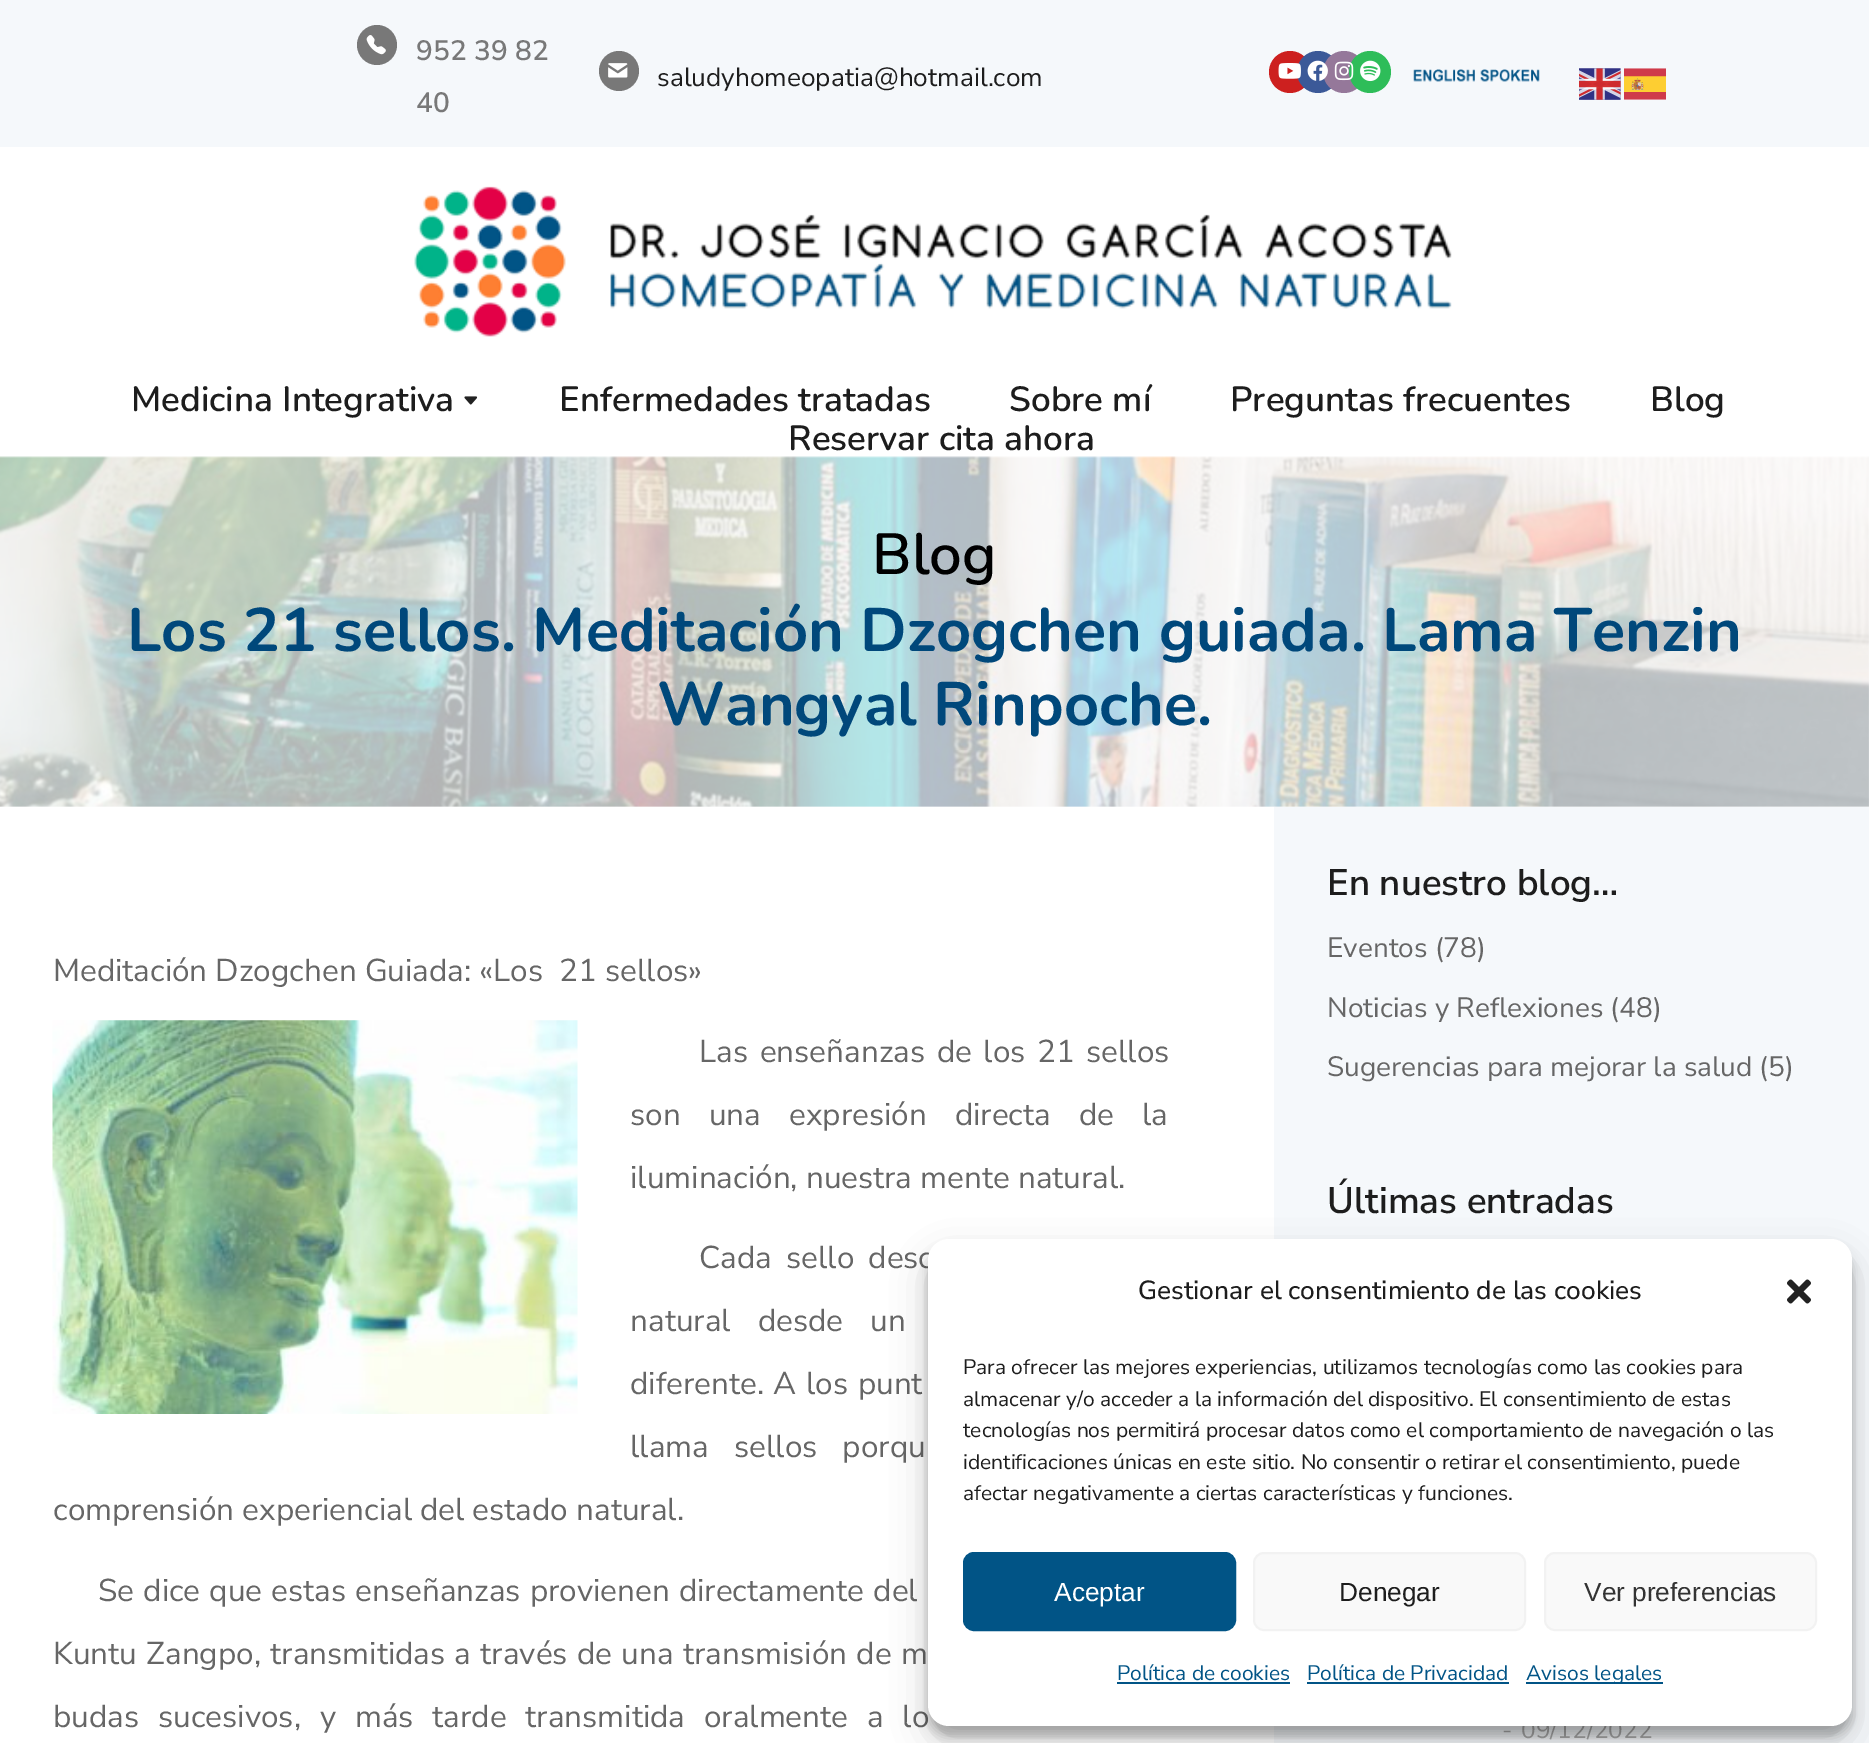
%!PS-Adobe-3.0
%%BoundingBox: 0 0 1869 1743
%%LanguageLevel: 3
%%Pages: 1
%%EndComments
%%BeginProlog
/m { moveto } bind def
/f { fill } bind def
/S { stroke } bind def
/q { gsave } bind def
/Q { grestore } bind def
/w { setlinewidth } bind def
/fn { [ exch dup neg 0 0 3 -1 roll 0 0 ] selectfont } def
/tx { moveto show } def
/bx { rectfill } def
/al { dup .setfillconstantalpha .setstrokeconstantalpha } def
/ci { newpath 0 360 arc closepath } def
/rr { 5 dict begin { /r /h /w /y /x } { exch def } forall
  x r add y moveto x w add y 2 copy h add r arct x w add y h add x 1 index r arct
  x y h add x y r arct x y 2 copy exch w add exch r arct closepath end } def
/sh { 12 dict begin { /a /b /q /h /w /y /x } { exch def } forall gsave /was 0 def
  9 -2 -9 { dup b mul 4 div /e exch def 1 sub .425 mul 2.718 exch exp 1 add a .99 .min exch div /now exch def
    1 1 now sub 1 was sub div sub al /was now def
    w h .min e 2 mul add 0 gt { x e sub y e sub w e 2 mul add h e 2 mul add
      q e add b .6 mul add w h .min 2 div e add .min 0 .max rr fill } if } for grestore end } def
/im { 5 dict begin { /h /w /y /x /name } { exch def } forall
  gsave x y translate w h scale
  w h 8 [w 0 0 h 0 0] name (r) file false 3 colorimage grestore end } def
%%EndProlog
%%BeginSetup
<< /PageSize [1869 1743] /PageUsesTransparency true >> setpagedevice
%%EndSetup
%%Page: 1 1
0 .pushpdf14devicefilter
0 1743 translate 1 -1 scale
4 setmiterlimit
1 setgray
0 0 1869 1743 bx
0.961 0.973 0.984 setrgbcolor
0 0 1869 147 bx
0.471 setgray
377 45 20 ci f
(image0.raw) 366 35 20 20 im
/NunitoSans-SemiBold 28 fn
(952 39 82) 416 60 tx
(40) 416 112 tx
619 71 20 ci f
(image1.raw) 608 63 20 15 im
/NunitoSans-Regular 26.25 fn
0.114 setgray
(saludyhomeopatia@hotmail.com) 657 86 tx
0.804 0.125 0.122 setrgbcolor
1290 72 21 ci f
0.231 0.349 0.596 setrgbcolor
1318 72 21 ci f
(image2.raw) 1278 63 23 16 im
0.584 0.471 0.604 setrgbcolor
1344 72 21 ci f
(image3.raw) 1307 60 21 21 im
0.18 0.741 0.349 setrgbcolor
1370 72 21 ci f
(image4.raw) 1334 61 20 20 im
(image5.raw) 1360 60 21 22 im
(image6.raw) 1413 69 127 13 im
(image7.raw) 1579 68 42 32 im
(image8.raw) 1624 68 42 32 im
(image9.raw) 414 186 1038 151 im
/Nunito-SemiBold 35 fn
0.114 setgray
(Medicina Integrativa) 131 411 tx
(image10.raw) 464 396 14 9 im
(Enfermedades tratadas) 559 411 tx
(Sobre mí) 1009 411 tx
(Preguntas frecuentes) 1230 411 tx
(Blog) 1650 411 tx
(Reservar cita ahora) 788 450 tx
(image11.raw) 0 456 1869 351 im
/Nunito-SemiBold 58 fn
0 setgray
(Blog) 872 574 tx
/Nunito-Bold 61.25 fn
0 0.282 0.482 setrgbcolor
(Los 21 sellos. Meditación Dzogchen guiada. Lama Tenzin) 127 651 tx
(Wangyal Rinpoche.) 657 725 tx
/NunitoSans-Regular 31.5 fn
0.4 setgray
(Meditación Dzogchen Guiada: «Los  21 sellos») 53 981 tx
(image12.raw) 52 1020 526 394 im
699 1062 m 3.5 0 32 (Las enseñanzas de los 21 sellos) widthshow
630 1125 m 20 0 32 (son una expresión directa de la) widthshow
(iluminación, nuestra mente natural.) 630 1188 tx
699 1268 m 6 0 32 (Cada sello desc) widthshow
630 1331 m 19 0 32 (natural desde un) widthshow
630 1394 m 1.5 0 32 (diferente. A los punt) widthshow
630 1457 m 17 0 32 (llama sellos porqu) widthshow
(comprensión experiencial del estado natural.) 53 1520 tx
98 1601 m 1 0 32 (Se dice que estas enseñanzas provienen directamente del) widthshow
53 1664 m 1.25 0 32 (Kuntu Zangpo, transmitidas a través de una transmisión de m) widthshow
53 1727 m 10.75 0 32 (budas sucesivos, y más tarde transmitida oralmente a lo) widthshow
0.961 0.973 0.984 setrgbcolor
1274 807 595 936 bx
/NunitoSans-SemiBold 36.75 fn
0.114 setgray
(En nuestro blog…) 1327 895 tx
/NunitoSans-Regular 28 fn
0.4 setgray
(Eventos \(78\)) 1327 957 tx
(Noticias y Reflexiones \(48\)) 1327 1017 tx
(Sugerencias para mejorar la salud \(5\)) 1327 1076 tx
/NunitoSans-SemiBold 36.75 fn
0.114 setgray
(Últimas entradas) 1327 1213 tx
/NunitoSans-Regular 24.5 fn
0.667 setgray
(-) 1502 1738 tx
(09/12/2022) 1521 1738 tx
0 setgray
928 1250 924 486 21 5 0.23 sh
928 1257 924 486 21 17.5 0.19 sh
1 setgray
928 1239 924 487 21 rr f
/NunitoSans-Medium 26.25 fn
0.114 setgray
(Gestionar el consentimiento de las cookies) 1138 1299 tx
(image13.raw) 1787 1279 24 25 im
/NunitoSans-Regular 21 fn
(Para ofrecer las mejores experiencias, utilizamos tecnologías como las cookies para) 963 1374 tx
(almacenar y/o acceder a la información del dispositivo. El consentimiento de estas) 963 1406 tx
(tecnologías nos permitirá procesar datos como el comportamiento de navegación o las) 963 1437 tx
(identificaciones únicas en este sitio. No consentir o retirar el consentimiento, puede) 963 1469 tx
(afectar negativamente a ciertas características y funciones.) 963 1500 tx
0.004 0.329 0.525 setrgbcolor
964 1553 271 77 10 rr q f Q
2 w
S
/LiberationSans-Regular 26.25 fn
1 setgray
(Aceptar) 1054 1601 tx
0.976 setgray
1254 1553 271 77 10 rr q f Q
0.949 setgray
S
0.114 setgray
(Denegar) 1339 1601 tx
0.976 setgray
1545 1553 271 77 10 rr q f Q
0.949 setgray
S
0.2 setgray
(Ver preferencias) 1584 1601 tx
/NunitoSans-Regular 21 fn
0.004 0.329 0.525 setrgbcolor
(Política de cookies) 1117 1680 tx
1117 1682 173 2 bx
(Política de Privacidad) 1307 1680 tx
1307 1682 202 2 bx
1526 1682 137 2 bx
(Avisos legales) 1526 1680 tx
.poppdf14devicefilter showpage
%%EOF
